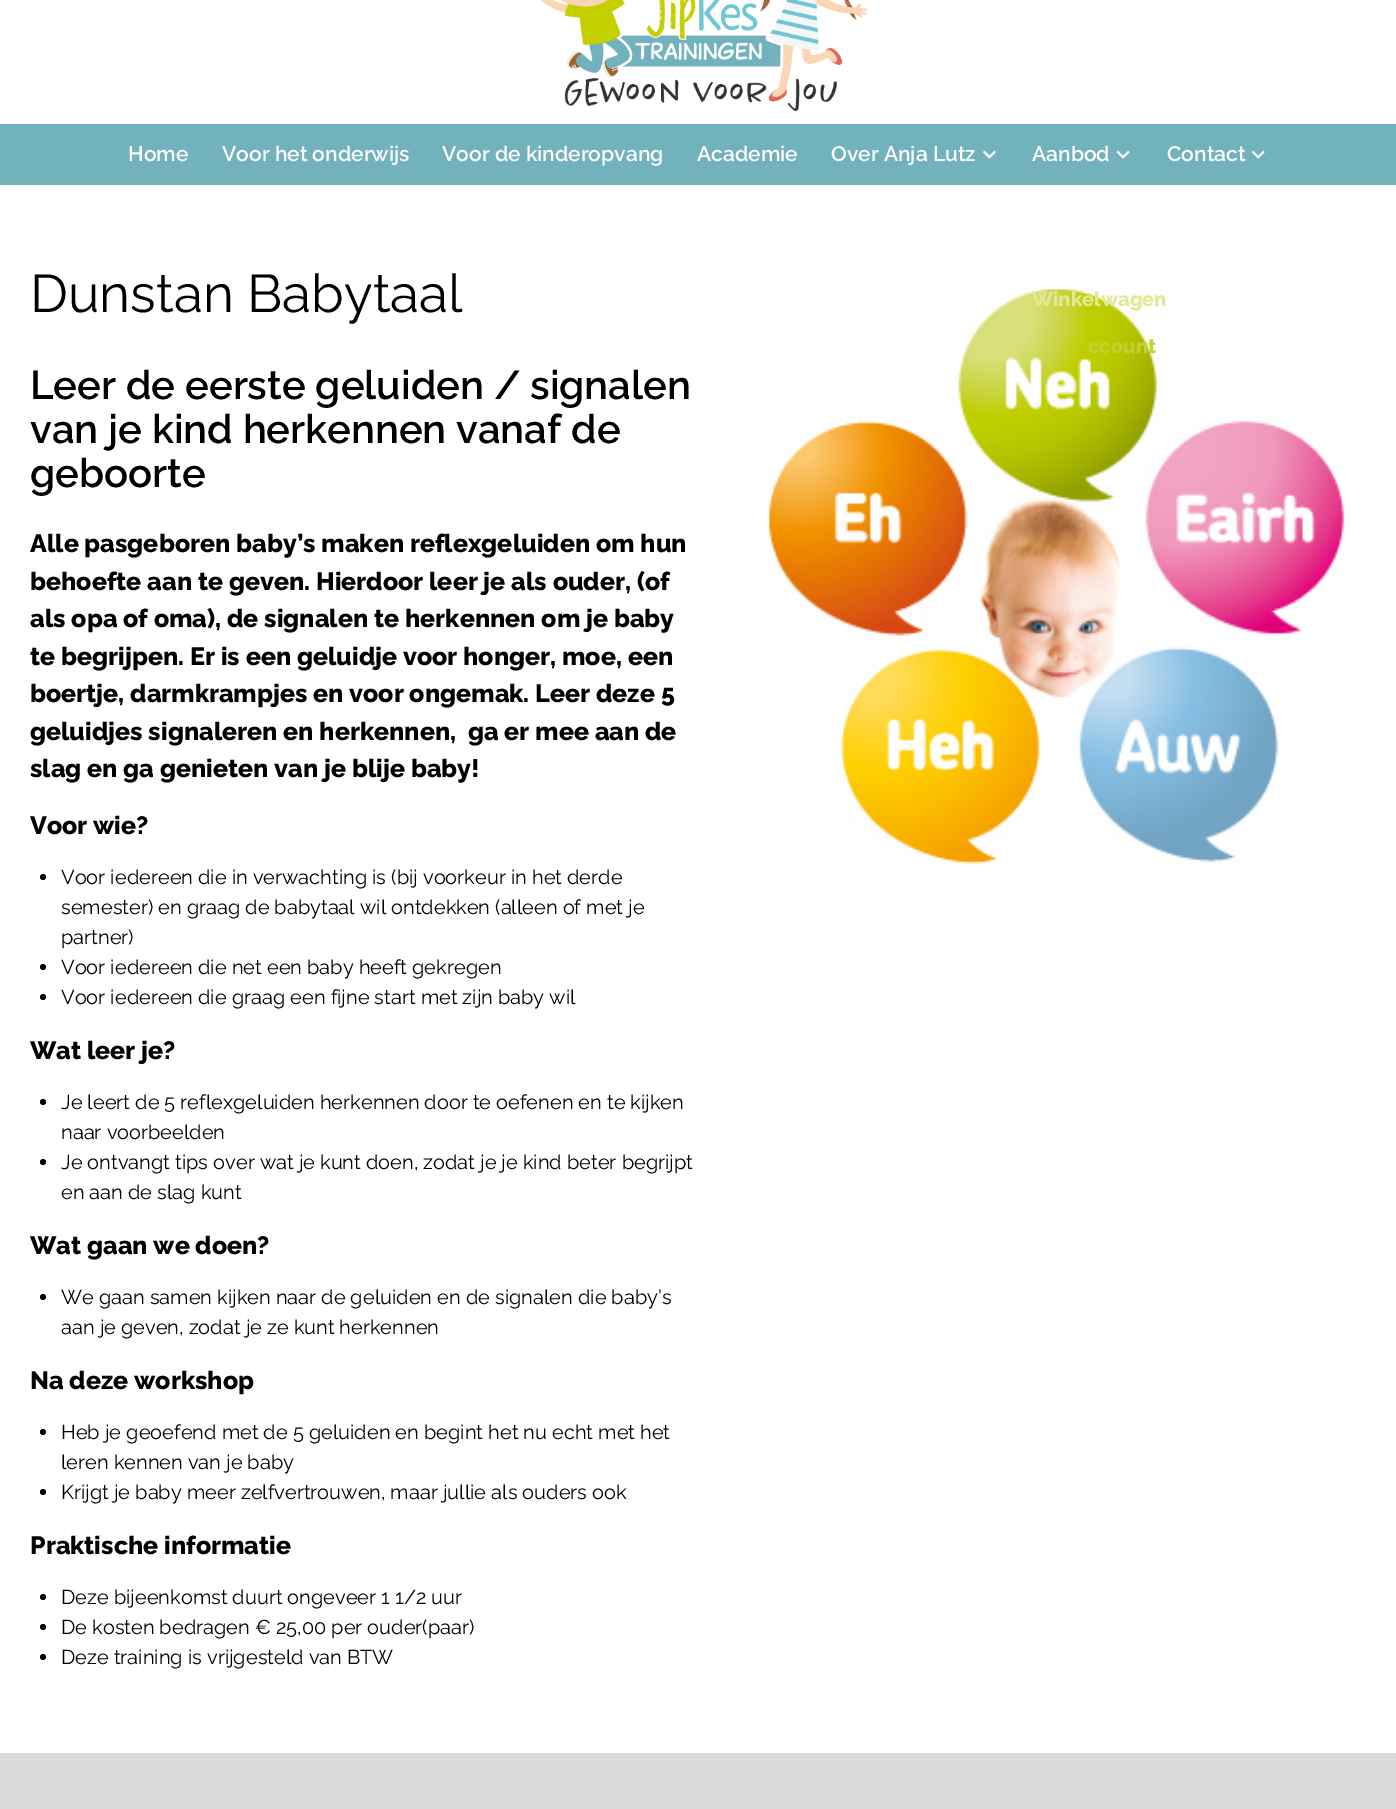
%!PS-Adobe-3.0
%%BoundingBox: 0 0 1396 1809
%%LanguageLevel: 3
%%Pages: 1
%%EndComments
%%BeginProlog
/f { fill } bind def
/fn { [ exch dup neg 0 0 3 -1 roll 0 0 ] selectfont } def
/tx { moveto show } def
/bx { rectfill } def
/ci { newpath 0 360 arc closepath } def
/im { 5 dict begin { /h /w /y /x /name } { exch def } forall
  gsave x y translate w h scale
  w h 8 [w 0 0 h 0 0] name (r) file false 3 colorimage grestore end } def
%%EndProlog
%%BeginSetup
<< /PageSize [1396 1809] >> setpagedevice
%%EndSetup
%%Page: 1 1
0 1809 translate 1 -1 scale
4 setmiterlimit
1 setgray
0 0 1396 1809 bx
(image0.raw) 540 0 328 112 im
0.447 0.698 0.741 setrgbcolor
0 124 1396 61 bx
/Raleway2-Thin 21 fn
1 setgray
(Home) 128 161 tx
(Voor het onderwijs) 222 161 tx
(Voor de kinderopvang) 442 161 tx
(Academie) 697 161 tx
(Over Anja Lutz) 831 161 tx
(image1.raw) 982 150 14 9 im
(Aanbod) 1032 161 tx
(image2.raw) 1116 150 14 9 im
(image3.raw) 768 288 577 577 im
/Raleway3-Thin 20 fn
0.886 0.91 0.58 setrgbcolor
(Winkelwagen) 1032 306 tx
0.773 0.82 0.192 setrgbcolor
(ccount) 1088 353 tx
/Raleway2-Thin 21 fn
1 setgray
(Contact) 1167 161 tx
(image2.raw) 1251 150 14 9 im
/Raleway-Thin 53 fn
0 setgray
(Dunstan Babytaal) 30 312 tx
/Raleway2-Thin 40 fn
(Leer de eerste geluiden / signalen) 30 399 tx
(van je kind herkennen vanaf de) 30 443 tx
(geboorte) 30 487 tx
/Raleway3-Thin 25 fn
(Alle pasgeboren baby’s maken reflexgeluiden om hun) 30 552 tx
(behoefte aan te geven. Hierdoor leer je als ouder, \(of) 30 590 tx
(als opa of oma\), de signalen te herkennen om je baby) 30 627 tx
(te begrijpen. Er is een geluidje voor honger, moe, een) 30 665 tx
(boertje, darmkrampjes en voor ongemak. Leer deze 5) 30 702 tx
(geluidjes signaleren en herkennen,  ga er mee aan de) 30 740 tx
(slag en ga genieten van je blije baby!) 30 777 tx
(Voor wie?) 30 834 tx
43 877 3 ci f
/Raleway-Thin 20 fn
(Voor iedereen die in verwachting is \(bij voorkeur in het derde) 61 884 tx
(semester\) en graag de babytaal wil ontdekken \(alleen of met je) 61 914 tx
(partner\)) 61 944 tx
43 967 3 ci f
(Voor iedereen die net een baby heeft gekregen) 61 974 tx
43 997 3 ci f
(Voor iedereen die graag een fijne start met zijn baby wil) 61 1004 tx
/Raleway3-Thin 25 fn
(Wat leer je?) 30 1059 tx
43 1102 3 ci f
/Raleway-Thin 20 fn
(Je leert de 5 reflexgeluiden herkennen door te oefenen en te kijken) 61 1109 tx
(naar voorbeelden) 61 1139 tx
43 1162 3 ci f
(Je ontvangt tips over wat je kunt doen, zodat je je kind beter begrijpt) 61 1169 tx
(en aan de slag kunt) 61 1199 tx
/Raleway3-Thin 25 fn
(Wat gaan we doen?) 30 1254 tx
43 1297 3 ci f
/Raleway-Thin 20 fn
(We gaan samen kijken naar de geluiden en de signalen die baby’s) 61 1304 tx
(aan je geven, zodat je ze kunt herkennen) 61 1334 tx
/Raleway3-Thin 25 fn
(Na deze workshop) 30 1389 tx
43 1432 3 ci f
/Raleway-Thin 20 fn
(Heb je geoefend met de 5 geluiden en begint het nu echt met het) 61 1439 tx
(leren kennen van je baby) 61 1469 tx
43 1492 3 ci f
(Krijgt je baby meer zelfvertrouwen, maar jullie als ouders ook) 61 1499 tx
/Raleway3-Thin 25 fn
(Praktische informatie) 30 1554 tx
43 1597 3 ci f
/Raleway-Thin 20 fn
(Deze bijeenkomst duurt ongeveer 1 1/2 uur) 61 1604 tx
43 1627 3 ci f
(De kosten bedragen € 25,00 per ouder\(paar\)) 61 1634 tx
43 1657 3 ci f
(Deze training is vrijgesteld van BTW) 61 1664 tx
0.859 setgray
0 1753 1396 56 bx
showpage
%%EOF
